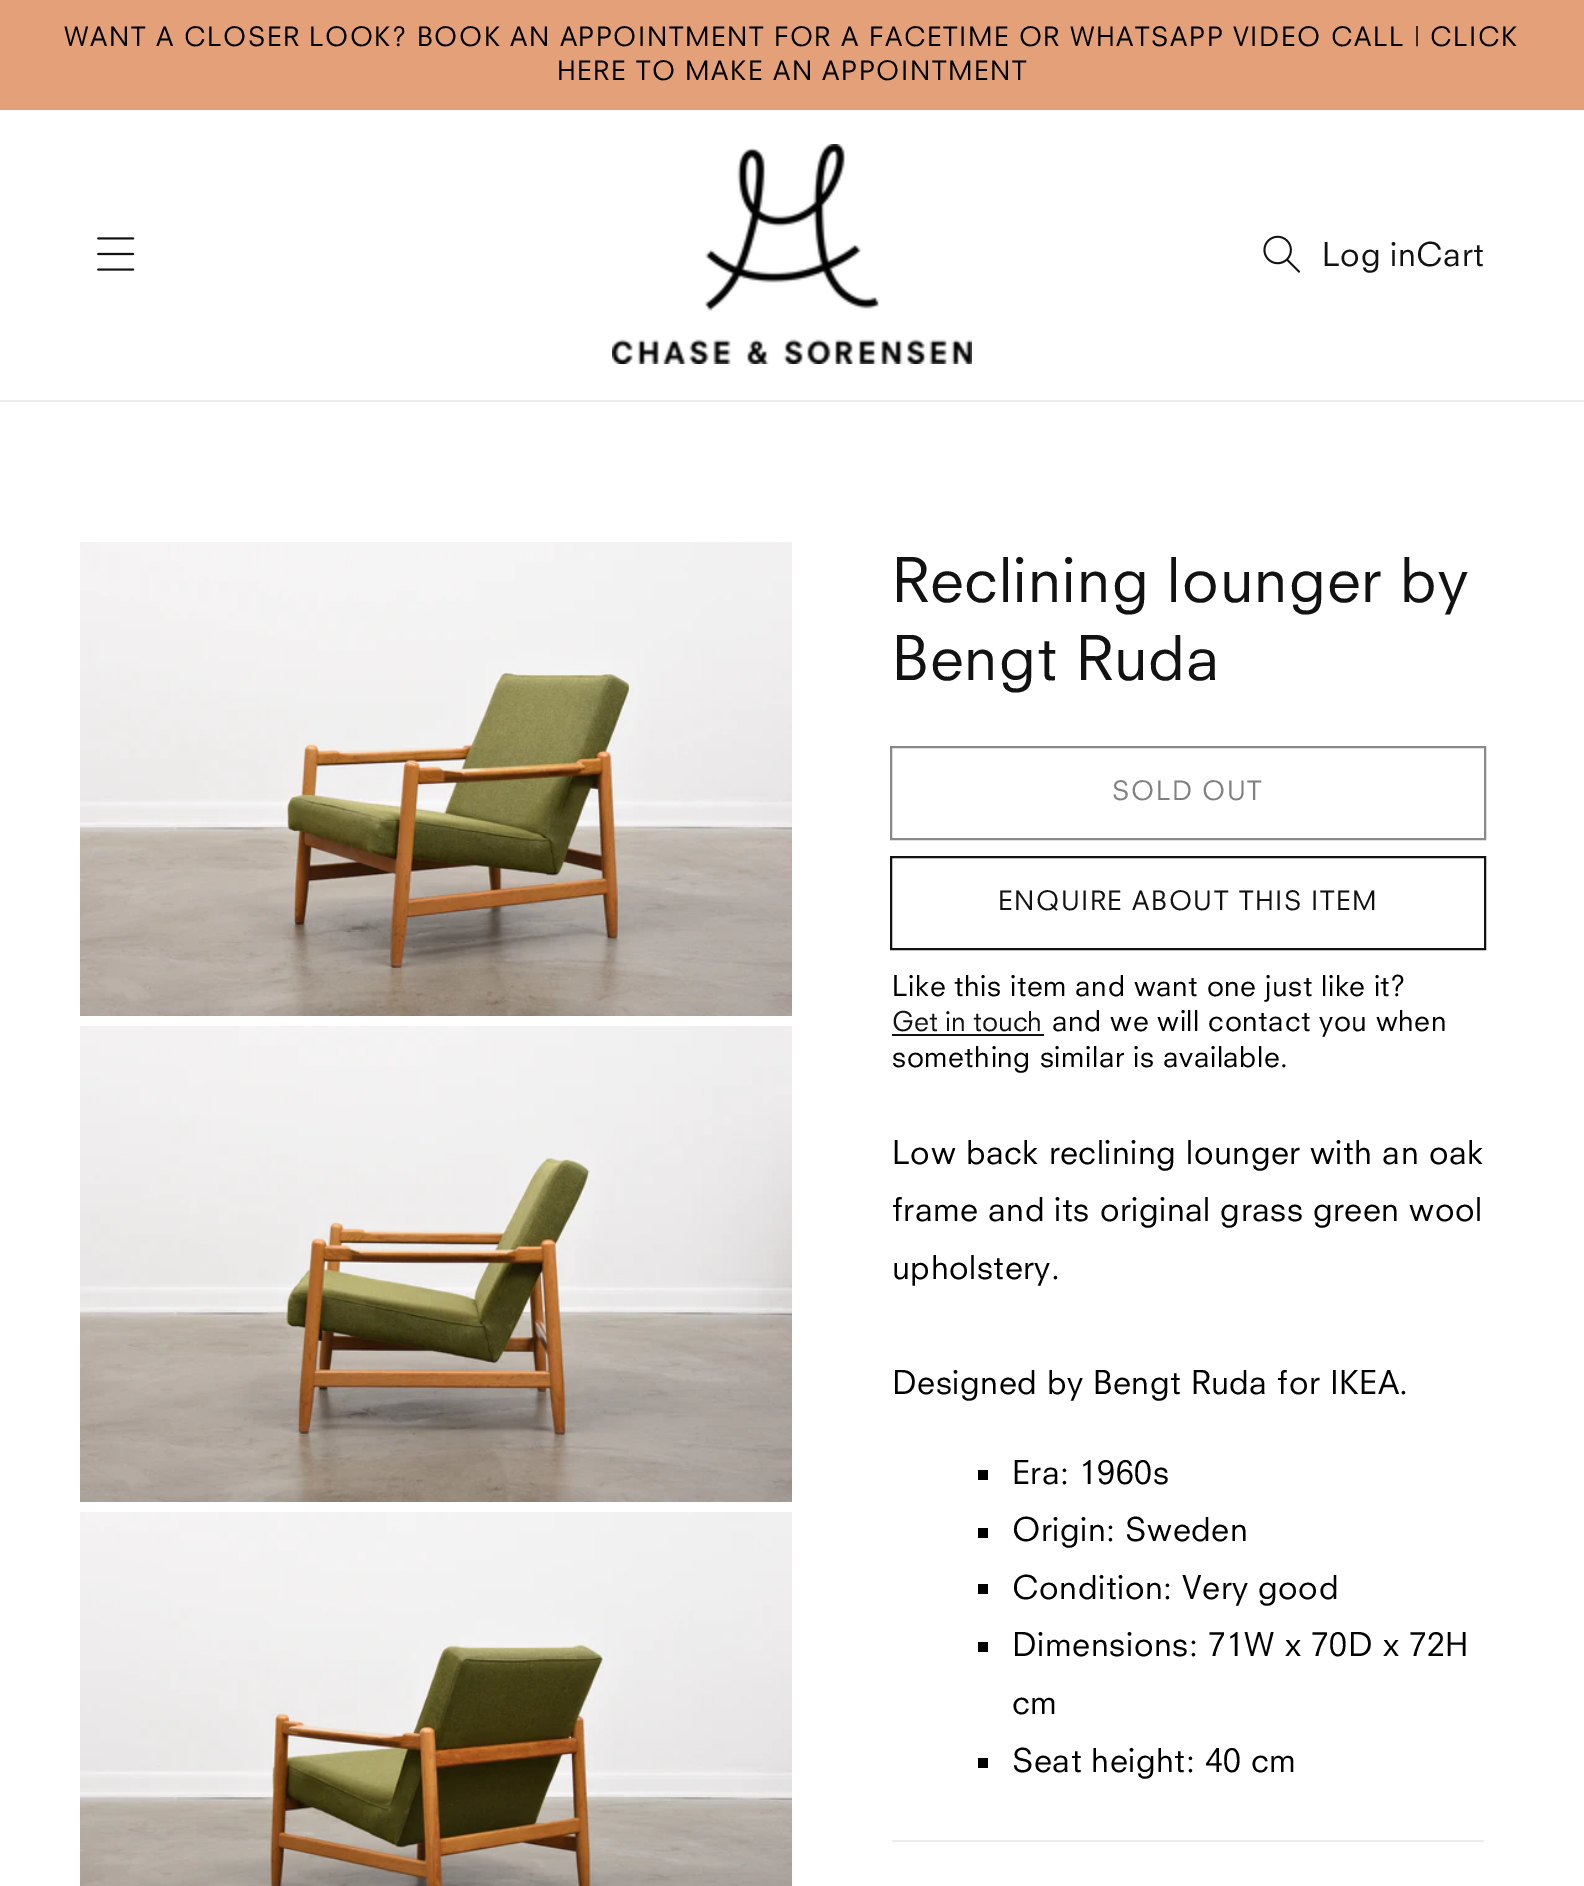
%!PS-Adobe-3.0
%%BoundingBox: 0 0 1584 1886
%%LanguageLevel: 3
%%Pages: 1
%%EndComments
%%BeginProlog
/m { moveto } bind def
/w { setlinewidth } bind def
/fn { [ exch dup neg 0 0 3 -1 roll 0 0 ] selectfont } def
/tx { moveto show } def
/bx { rectfill } def
/im { 5 dict begin { /h /w /y /x /name } { exch def } forall
  gsave x y translate w h scale
  w h 8 [w 0 0 h 0 0] name (r) file false 3 colorimage grestore end } def
%%EndProlog
%%BeginSetup
<< /PageSize [1584 1886] >> setpagedevice
%%EndSetup
%%Page: 1 1
0 1886 translate 1 -1 scale
4 setmiterlimit
1 setgray
0 0 1584 1886 bx
0.878 0.616 0.463 setrgbcolor
0 108 1584 2 bx
0.894 0.627 0.475 setrgbcolor
0 0 1584 108 bx
/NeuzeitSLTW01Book-Regular 26 fn
0 setgray
64 46 m 1.6 0 (WANT A CLOSER LOOK? BOOK AN APPOINTMENT FOR A FACETIME OR WHATSAPP VIDEO CALL | CLICK) ashow
557 80 m 1.6 0 (HERE TO MAKE AN APPOINTMENT) ashow
0.925 setgray
0 400 1584 2 bx
(image0.raw) 97 237 38 34 im
(image1.raw) 612 144 360 220 im
(image2.raw) 1263 235 37 38 im
/NeuzeitSLTW01Book-Regular 32 fn
0.071 setgray
1322 266 m 0.6 0 (Log inCart) ashow
(image3.raw) 80 542 712 474 im
(image4.raw) 80 1026 712 476 im
(image5.raw) 80 1512 712 374 im
/NeuzeitSLTW01Book-Regular 60 fn
892 602 m 1.2 0 (Reclining lounger by) ashow
892 680 m 1.2 0 (Bengt Ruda) ashow
0.537 setgray
2 w
891 747 594 92 rectstroke
/NeuzeitSLTW01Book-Regular 26 fn
0.502 setgray
1112 800 m 1.6 0 (SOLD OUT) ashow
0.071 setgray
891 857 594 92 rectstroke
998 910 m 1.6 0 (ENQUIRE ABOUT THIS ITEM) ashow
/NeuzeitSLTW01Book-Regular 28 fn
0 setgray
892 996 m 0.6 0 (Like this item and want one just like it?) ashow
/NeuzeitSLTW01Book-Regular 26.5 fn
0.071 setgray
(Get in touch) 892 1031 tx
892 1034 152 2 bx
/NeuzeitSLTW01Book-Regular 28 fn
0 setgray
1052 1031 m 0.6 0 (and we will contact you when) ashow
892 1067 m 0.6 0 (something similar is available.) ashow
/NeuzeitSLTW01Book-Regular 32 fn
892 1164 m 0.6 0 (Low back reclining lounger with an oak) ashow
892 1221 m 0.6 0 (frame and its original grass green wool) ashow
892 1279 m 0.6 0 (upholstery.) ashow
892 1394 m 0.6 0 (Designed by Bengt Ruda for IKEA.) ashow
978 1470 10 10 bx
1012 1484 m 0.6 0 (Era: 1960s) ashow
978 1528 10 10 bx
1012 1541 m 0.6 0 (Origin: Sweden) ashow
978 1584 10 10 bx
1012 1599 m 0.6 0 (Condition: Very good) ashow
978 1642 10 10 bx
1012 1656 m 0.6 0 (Dimensions: 71W x 70D x 72H) ashow
1012 1714 m 0.6 0 (cm) ashow
978 1758 10 10 bx
1012 1772 m 0.6 0 (Seat height: 40 cm) ashow
0.925 setgray
892 1840 592 2 bx
showpage
%%EOF
